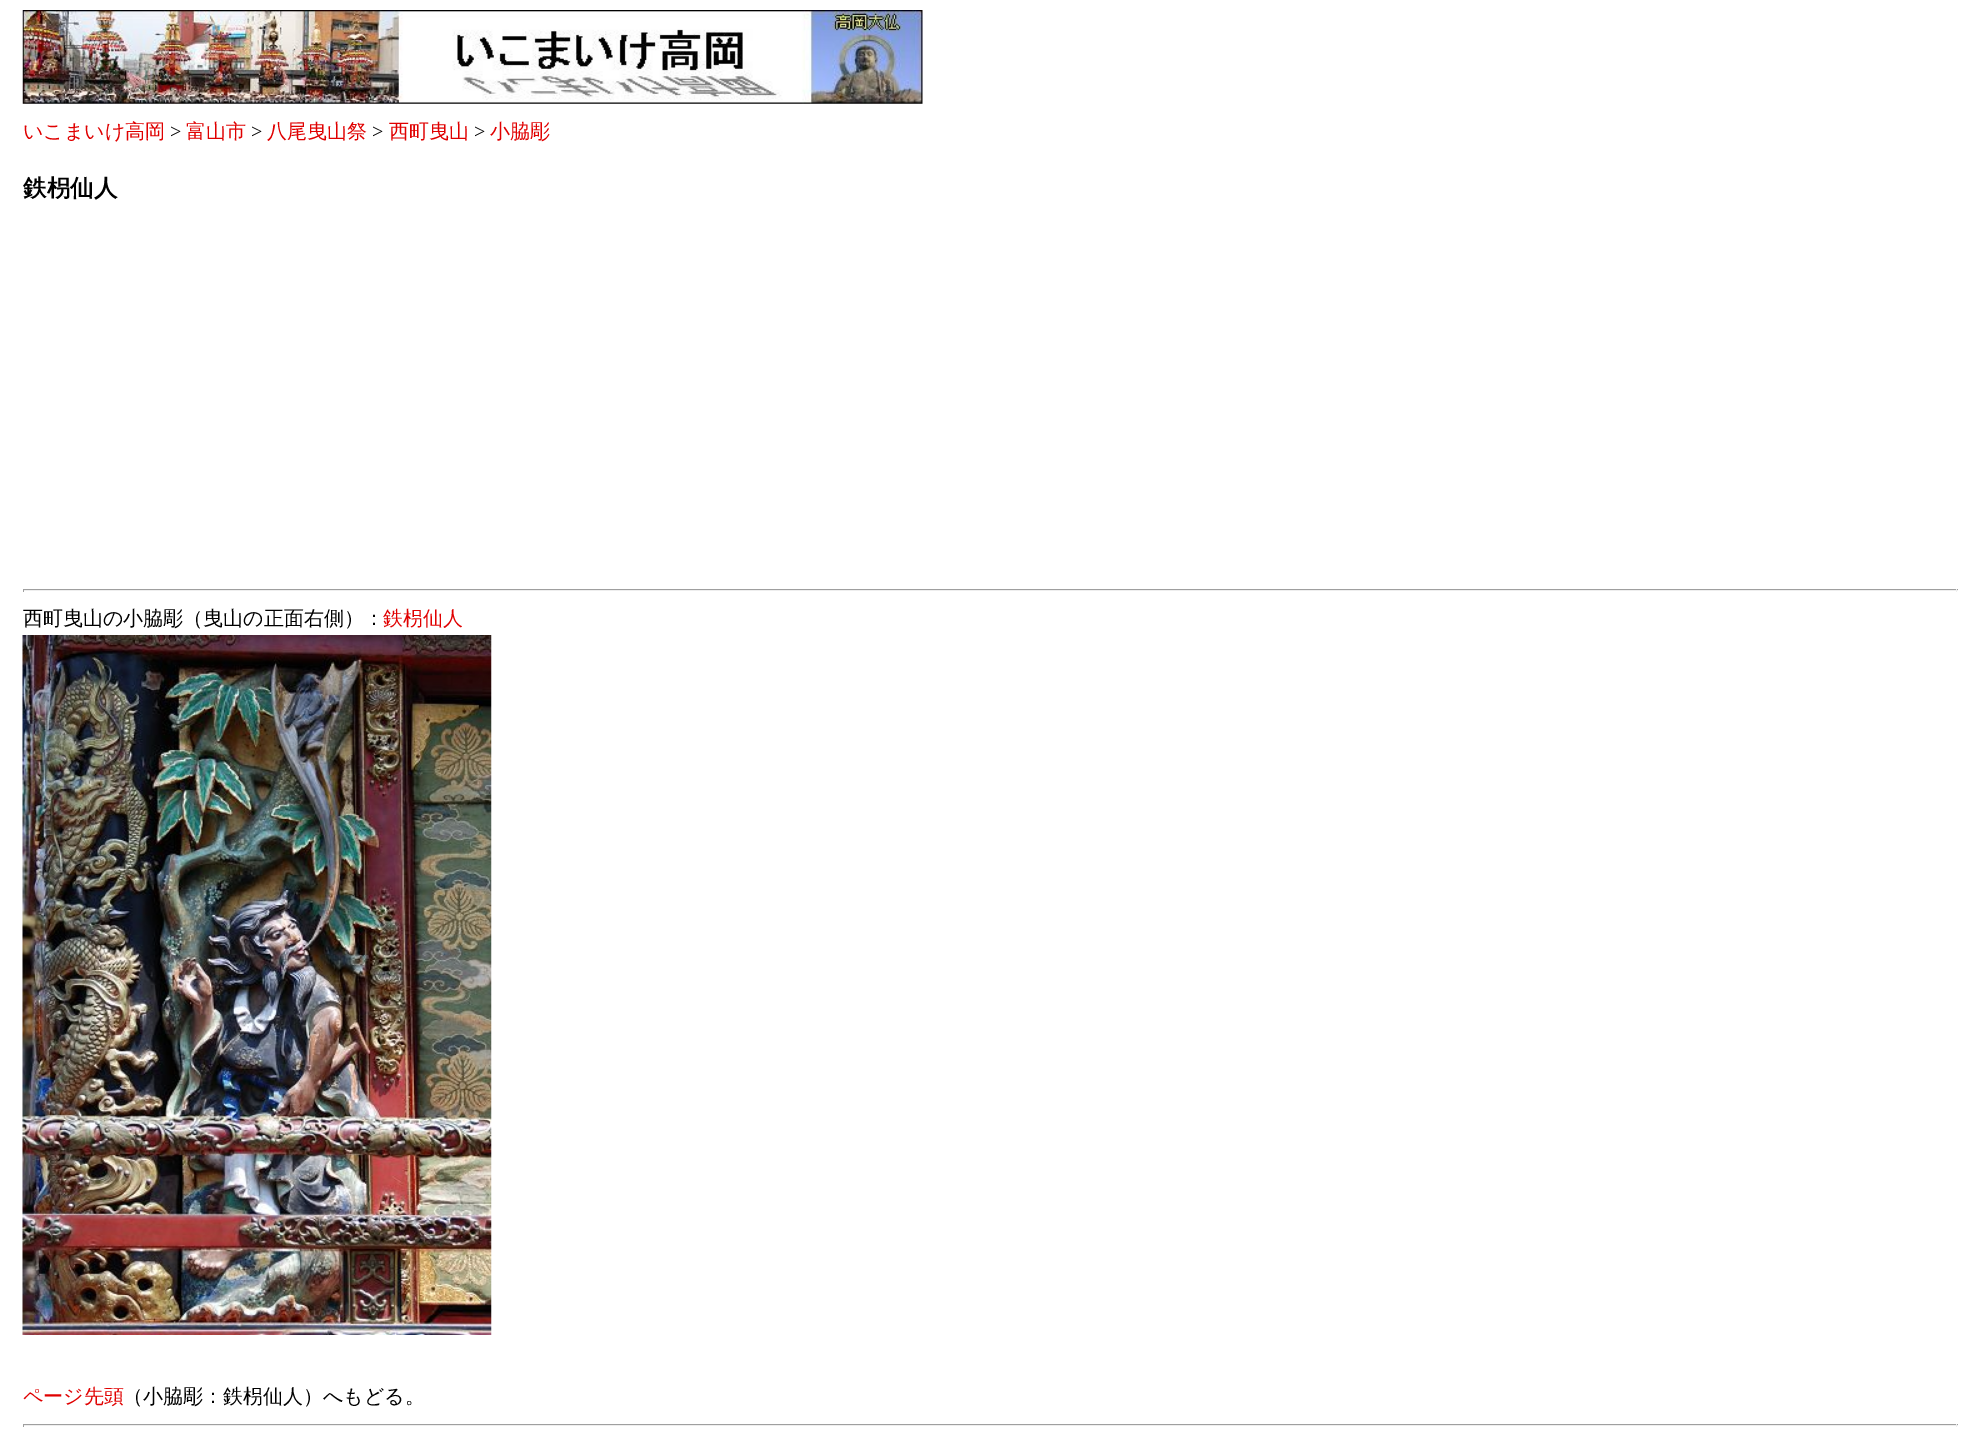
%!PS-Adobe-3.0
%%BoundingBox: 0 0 1980 1433
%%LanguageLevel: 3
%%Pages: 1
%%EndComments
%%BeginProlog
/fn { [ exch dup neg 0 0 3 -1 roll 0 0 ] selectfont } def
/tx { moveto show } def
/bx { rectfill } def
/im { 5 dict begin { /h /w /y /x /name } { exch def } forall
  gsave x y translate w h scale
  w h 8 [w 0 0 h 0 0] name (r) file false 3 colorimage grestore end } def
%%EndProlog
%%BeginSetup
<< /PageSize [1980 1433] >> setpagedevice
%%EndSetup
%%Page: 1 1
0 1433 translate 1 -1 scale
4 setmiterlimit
1 setgray
0 0 1980 1433 bx
(image0.raw) 22 10 901 94 im
/WenQuanYiZenHei-Medium 20 fn
0.878 0 0 setrgbcolor
(いこまいけ高岡) 23 138 tx
/LiberationSerif-Regular 20 fn
0 setgray
(>) 170 138 tx
/WenQuanYiZenHei-Medium 20 fn
0.878 0 0 setrgbcolor
(富山市) 186 138 tx
/LiberationSerif-Regular 20 fn
0 setgray
(>) 251 138 tx
/WenQuanYiZenHei-Medium 20 fn
0.878 0 0 setrgbcolor
(八尾曳山祭) 267 138 tx
/LiberationSerif-Regular 20 fn
0 setgray
(>) 372 138 tx
/WenQuanYiZenHei-Medium 20 fn
0.878 0 0 setrgbcolor
(西町曳山) 389 138 tx
/LiberationSerif-Regular 20 fn
0 setgray
(>) 474 138 tx
/WenQuanYiZenHei-Medium 20 fn
0.878 0 0 setrgbcolor
(小脇彫) 490 138 tx
/WenQuanYiZenHei-Bold 23.5 fn
0 setgray
(鉄枴仙人) 23 196 tx
0.624 setgray
23 589 1935 1 bx
0.933 setgray
1956 589 1 3 bx
23 590 1935 1 bx
0.624 setgray
23 589 1 3 bx
/WenQuanYiZenHei-Medium 20 fn
0 setgray
(西町曳山の小脇彫（曳山の正面右側）：) 23 625 tx
0.878 0 0 setrgbcolor
(鉄枴仙人) 383 625 tx
(image1.raw) 22 635 470 700 im
(ページ先頭) 23 1403 tx
0 setgray
(（小脇彫：鉄枴仙人）へもどる。) 123 1403 tx
0.624 setgray
23 1424 1935 1 bx
0.933 setgray
1956 1424 1 3 bx
23 1425 1935 1 bx
0.624 setgray
23 1424 1 3 bx
showpage
%%EOF
